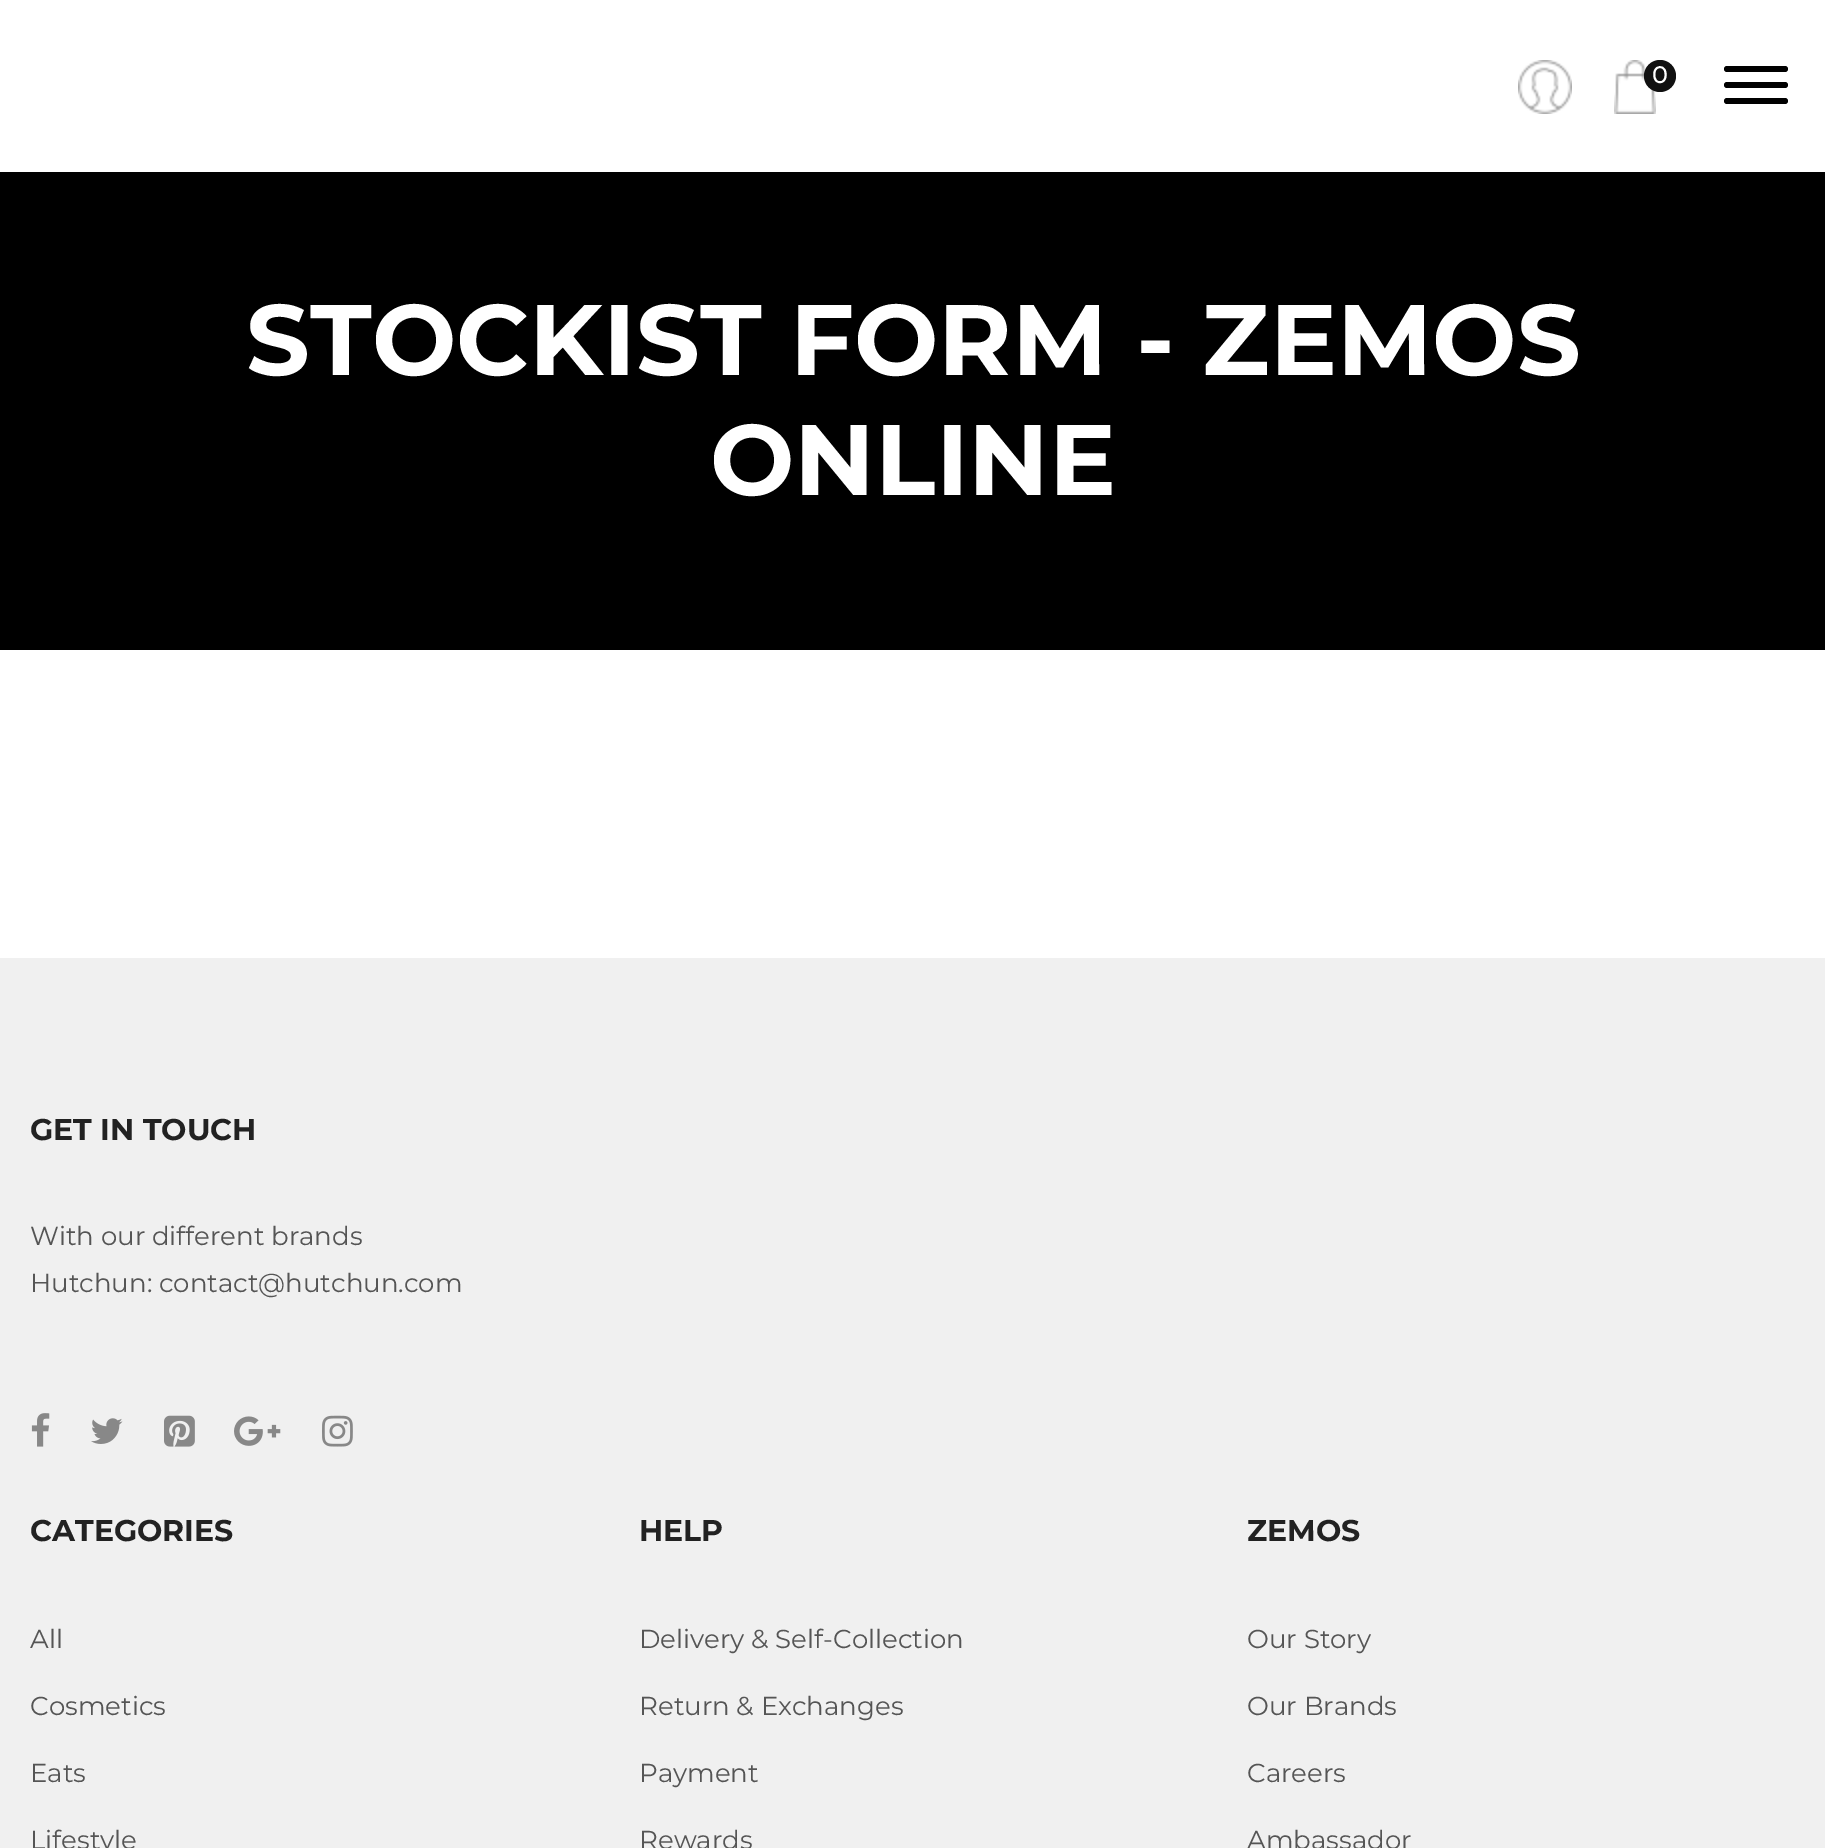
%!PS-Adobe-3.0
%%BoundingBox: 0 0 1825 1848
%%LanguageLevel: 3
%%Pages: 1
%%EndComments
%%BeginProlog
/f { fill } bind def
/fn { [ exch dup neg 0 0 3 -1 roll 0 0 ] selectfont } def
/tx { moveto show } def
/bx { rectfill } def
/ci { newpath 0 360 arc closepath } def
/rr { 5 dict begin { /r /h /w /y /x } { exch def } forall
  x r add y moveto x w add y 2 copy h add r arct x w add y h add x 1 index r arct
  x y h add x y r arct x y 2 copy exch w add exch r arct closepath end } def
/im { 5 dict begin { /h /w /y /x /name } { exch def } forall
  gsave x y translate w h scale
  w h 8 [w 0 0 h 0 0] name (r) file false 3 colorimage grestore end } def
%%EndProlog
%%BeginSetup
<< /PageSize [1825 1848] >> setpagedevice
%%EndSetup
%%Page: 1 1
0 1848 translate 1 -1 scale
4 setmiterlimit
1 setgray
0 0 1825 1848 bx
(image0.raw) 1518 60 54 54 im
(image1.raw) 1614 60 42 54 im
0.067 setgray
1660 76 16 ci f
/Montserrat-Medium 24 fn
1 setgray
(0) 1652 83 tx
0 setgray
1724 82 64 6 3 rr f
1724 66 64 6 3 rr f
1724 98 64 6 3 rr f
0 172 1825 478 bx
/Montserrat-Bold 100 fn
1 setgray
(STOCKIST FORM - ZEMOS) 246 375 tx
(ONLINE) 710 495 tx
0.941 setgray
0 958 1825 890 bx
/Montserrat-Bold 30 fn
0.133 setgray
(GET IN TOUCH) 30 1140 tx
/Montserrat-Regular 26 fn
0.333 setgray
(With our different brands) 30 1245 tx
(Hutchun: contact@hutchun.com) 30 1292 tx
(image2.raw) 31 1413 19 34 im
(image3.raw) 91 1418 32 26 im
(image4.raw) 164 1415 31 32 im
(image5.raw) 234 1416 47 30 im
(image6.raw) 322 1415 31 32 im
/Montserrat-Bold 30 fn
0.133 setgray
(CATEGORIES) 30 1541 tx
/Montserrat-Regular 26 fn
0.333 setgray
(All) 30 1648 tx
(Cosmetics) 30 1715 tx
(Eats) 30 1782 tx
(Lifestyle) 30 1849 tx
/Montserrat-Bold 30 fn
0.133 setgray
(HELP) 639 1541 tx
/Montserrat-Regular 26 fn
0.333 setgray
(Delivery & Self-Collection) 639 1648 tx
(Return & Exchanges) 639 1715 tx
(Payment) 639 1782 tx
(Rewards) 639 1849 tx
/Montserrat-Bold 30 fn
0.133 setgray
(ZEMOS) 1247 1541 tx
/Montserrat-Regular 26 fn
0.333 setgray
(Our Story) 1247 1648 tx
(Our Brands) 1247 1715 tx
(Careers) 1247 1782 tx
(Ambassador) 1247 1849 tx
showpage
%%EOF
